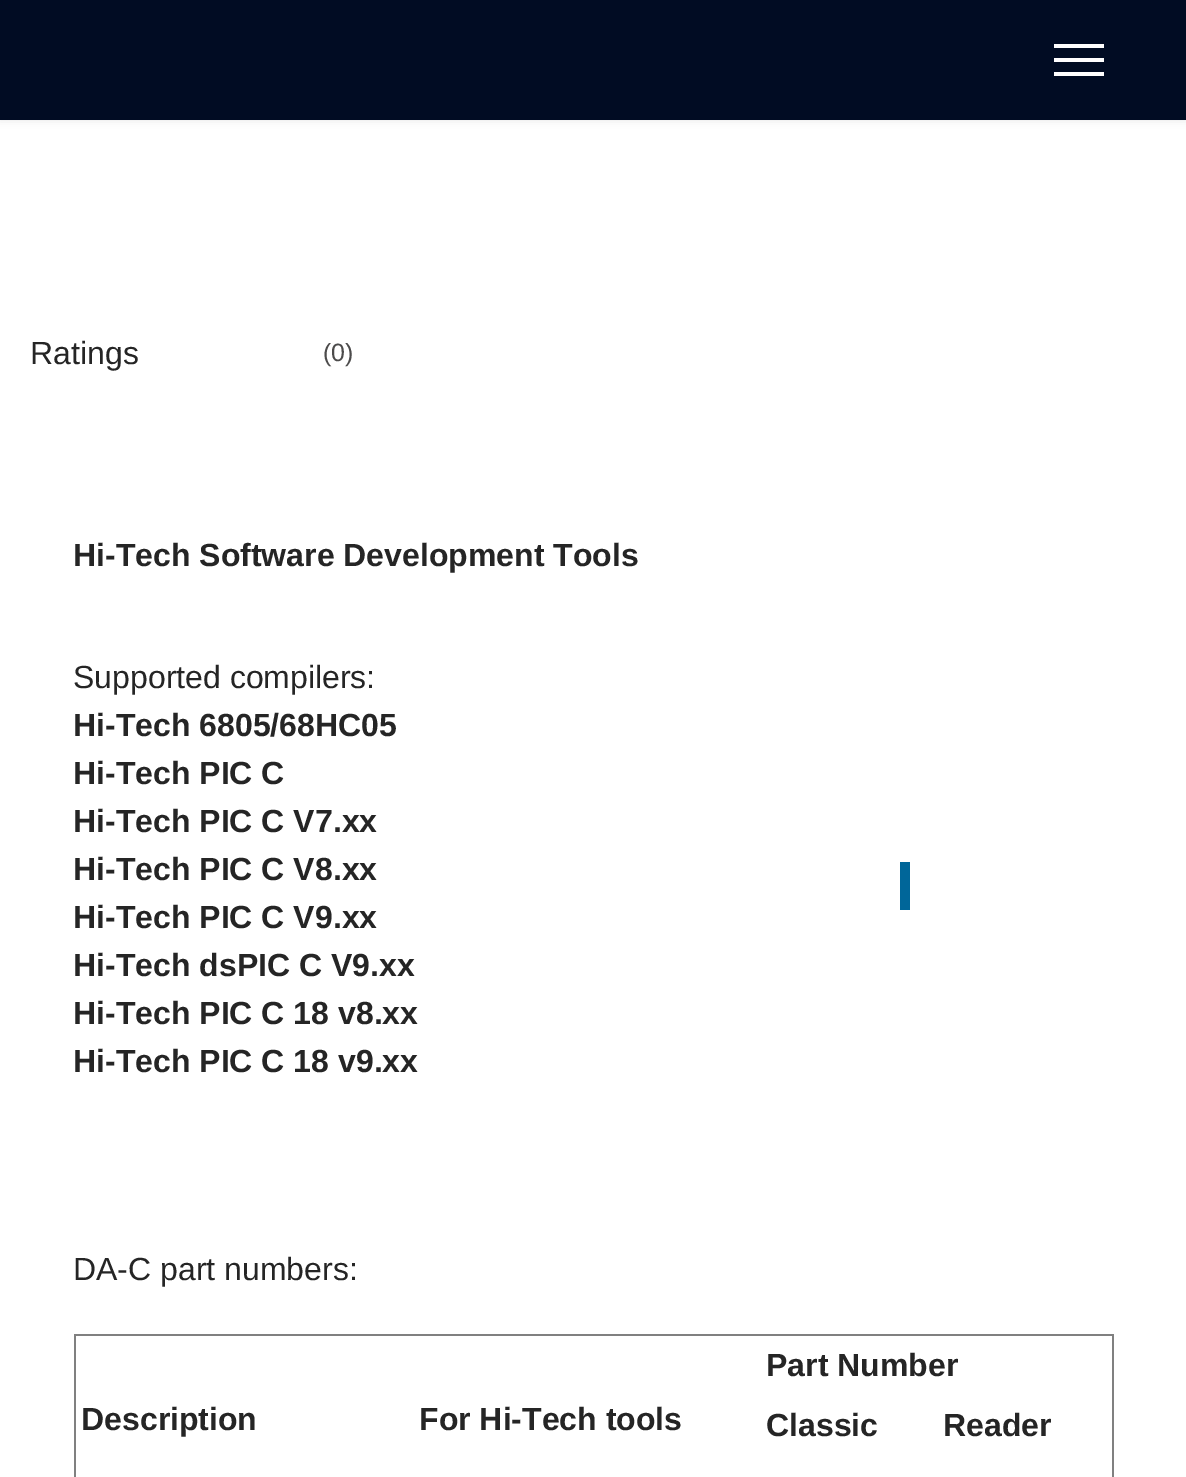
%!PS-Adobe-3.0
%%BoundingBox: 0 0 1186 1477
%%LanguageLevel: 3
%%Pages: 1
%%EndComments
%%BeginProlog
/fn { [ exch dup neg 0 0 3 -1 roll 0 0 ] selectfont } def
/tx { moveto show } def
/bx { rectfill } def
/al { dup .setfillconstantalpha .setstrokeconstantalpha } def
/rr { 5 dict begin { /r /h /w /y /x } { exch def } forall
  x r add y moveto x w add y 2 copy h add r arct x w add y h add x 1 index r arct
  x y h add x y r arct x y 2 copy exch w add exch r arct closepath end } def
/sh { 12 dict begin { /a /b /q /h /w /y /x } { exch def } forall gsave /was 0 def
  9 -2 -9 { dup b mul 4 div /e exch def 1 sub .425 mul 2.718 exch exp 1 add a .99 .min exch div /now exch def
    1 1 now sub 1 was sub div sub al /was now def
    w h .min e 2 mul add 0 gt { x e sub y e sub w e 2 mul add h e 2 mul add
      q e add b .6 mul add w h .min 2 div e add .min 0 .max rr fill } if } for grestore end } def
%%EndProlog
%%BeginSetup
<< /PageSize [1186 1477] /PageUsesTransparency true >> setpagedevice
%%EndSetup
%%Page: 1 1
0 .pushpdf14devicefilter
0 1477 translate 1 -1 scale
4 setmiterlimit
1 setgray
0 0 1186 1477 bx
0 setgray
0 0 1186 120 0 4 0.1 sh
0.004 0.047 0.137 setrgbcolor
0 0 1186 120 bx
1 setgray
1054 44 50 4 bx
1054 58 50 4 bx
1054 72 50 4 bx
/LiberationSans-Regular 32 fn
0.145 setgray
(Ratings) 30 364 tx
/LiberationSans-Regular 25 fn
0.298 0.294 0.294 setrgbcolor
(\(0\)) 323 361 tx
/LiberationSans-Bold 32 fn
0.145 setgray
(Hi-Tech Software Development Tools) 73 566 tx
/LiberationSans-Regular 32 fn
(Supported compilers:) 73 688 tx
/LiberationSans-Bold 32 fn
(Hi-Tech 6805/68HC05) 73 736 tx
(Hi-Tech PIC C) 73 784 tx
(Hi-Tech PIC C V7.xx) 73 832 tx
(Hi-Tech PIC C V8.xx) 73 880 tx
(Hi-Tech PIC C V9.xx) 73 928 tx
(Hi-Tech dsPIC C V9.xx) 73 976 tx
(Hi-Tech PIC C 18 v8.xx) 73 1024 tx
(Hi-Tech PIC C 18 v9.xx) 73 1072 tx
0 0.4 0.6 setrgbcolor
900 862 10 48 bx
/LiberationSans-Regular 32 fn
0.145 setgray
(DA-C part numbers:) 73 1280 tx
0.502 setgray
74 1334 1040 2 bx
1112 1334 2 143 bx
74 1334 2 143 bx
/LiberationSans-Bold 32 fn
0.145 setgray
(Part Number) 766 1376 tx
(Description) 81 1430 tx
(For Hi-Tech tools) 419 1430 tx
(Classic) 766 1436 tx
(Reader) 943 1436 tx
.poppdf14devicefilter showpage
%%EOF
